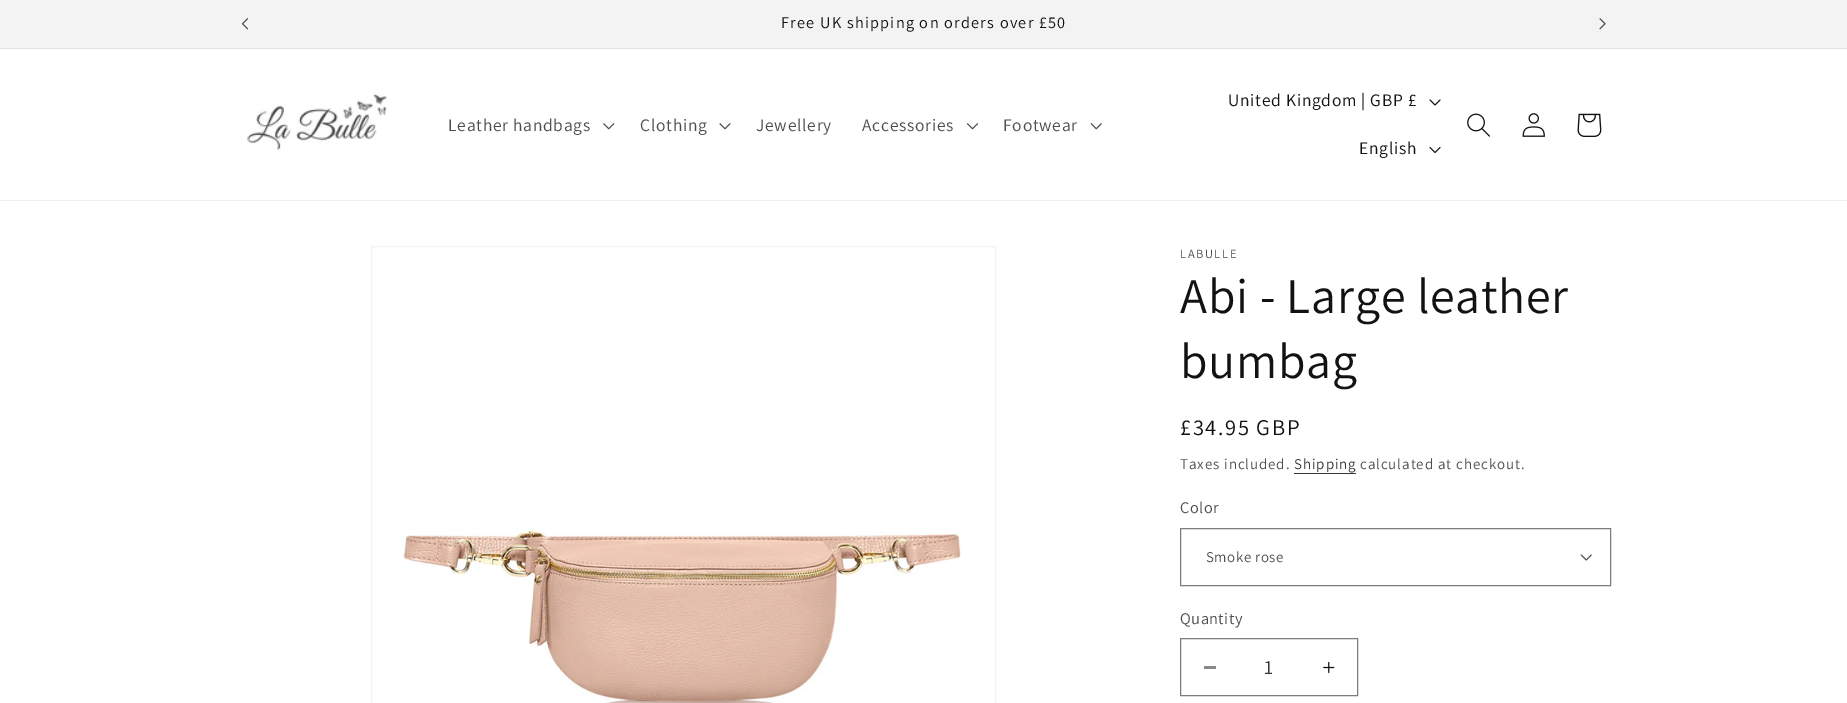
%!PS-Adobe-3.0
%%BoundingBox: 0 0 1847 703
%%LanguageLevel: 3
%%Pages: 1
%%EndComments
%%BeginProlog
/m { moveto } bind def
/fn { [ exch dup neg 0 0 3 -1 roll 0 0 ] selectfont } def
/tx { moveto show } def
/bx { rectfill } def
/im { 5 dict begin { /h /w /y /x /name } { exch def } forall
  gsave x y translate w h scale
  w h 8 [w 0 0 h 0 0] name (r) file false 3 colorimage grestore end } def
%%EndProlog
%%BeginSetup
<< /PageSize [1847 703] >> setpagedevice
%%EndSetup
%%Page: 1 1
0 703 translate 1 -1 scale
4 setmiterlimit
1 setgray
0 0 1847 703 bx
0.953 setgray
0 0 1847 48 bx
0.882 setgray
0 48 1847 1 bx
(image0.raw) 242 18 6 12 im
/Assistant-Regular 16.25 fn
0.071 setgray
781 28 m 1.25 0 (Free UK shipping on orders over £50) ashow
(image1.raw) 1599 18 7 12 im
0.925 setgray
0 200 1847 1 bx
(image2.raw) 247 93 140 58 im
/Assistant-Regular 17.5 fn
0.302 setgray
448 131 m 0.75 0 (Leather handbags) ashow
(image3.raw) 603 123 12 7 im
640 131 m 0.75 0 (Clothing) ashow
(image4.raw) 719 123 12 7 im
756 131 m 0.75 0 (Jewellery) ashow
862 131 m 0.75 0 (Accessories) ashow
(image5.raw) 966 123 13 7 im
1003 131 m 0.75 0 (Footwear) ashow
(image6.raw) 1090 123 12 7 im
0.071 setgray
1228 106 m 0.75 0 (United Kingdom | GBP £) ashow
(image7.raw) 1429 99 12 7 im
1359 154 m 0.75 0 (English) ashow
(image8.raw) 1429 147 12 6 im
(image9.raw) 1467 113 23 24 im
(image10.raw) 1522 113 23 24 im
(image11.raw) 1577 113 25 24 im
0.953 setgray
371.5 246.5 624 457 rectstroke
(image12.raw) 403 530 558 173 im
/Assistant-Regular 12.5 fn
0.302 setgray
1180 258 m 1.6 0 (LABULLE) ashow
/Assistant-Regular 50 fn
0.071 setgray
1180 313 m 0.75 0 (Abi - Large leather) ashow
1180 378 m 0.75 0 (bumbag) ashow
/Assistant-Regular 22.5 fn
1180 435 m 1.6 0 (£34.95 GBP) ashow
/Assistant-Regular 15 fn
0.302 setgray
1180 469 m 0.9 0 (Taxes included.) ashow
0.212 setgray
1294 469 m 0.9 0 (Shipping) ashow
1294 473 62 1 bx
0.302 setgray
1360 469 m 0.9 0 (calculated at checkout.) ashow
/Assistant-Regular 16.25 fn
1180 513 m 0.5 0 (Color) ashow
(image13.raw) 1580 554 12 7 im
0.49 setgray
1180.5 528.5 430 57 rectstroke
/Assistant-Regular 15 fn
0.302 setgray
1206 562 m 0.5 0 (Smoke rose) ashow
/Assistant-Regular 16.25 fn
1180 624 m 0.5 0 (Quantity) ashow
0.537 setgray
1204 666 12 3 bx
(image14.raw) 1323 661 12 13 im
0.49 setgray
1180.5 638.5 177 57 rectstroke
/Assistant-Regular 20 fn
0.212 setgray
(1) 1264 674 tx
showpage
%%EOF
